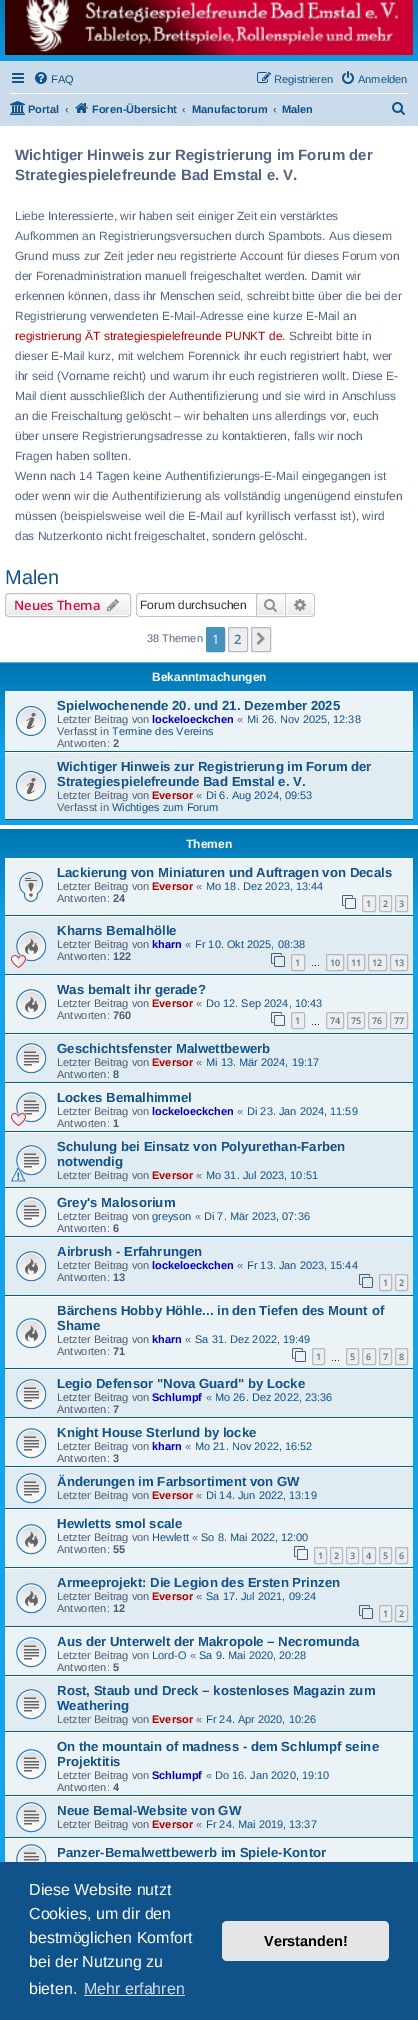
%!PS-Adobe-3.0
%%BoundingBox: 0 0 418 2020
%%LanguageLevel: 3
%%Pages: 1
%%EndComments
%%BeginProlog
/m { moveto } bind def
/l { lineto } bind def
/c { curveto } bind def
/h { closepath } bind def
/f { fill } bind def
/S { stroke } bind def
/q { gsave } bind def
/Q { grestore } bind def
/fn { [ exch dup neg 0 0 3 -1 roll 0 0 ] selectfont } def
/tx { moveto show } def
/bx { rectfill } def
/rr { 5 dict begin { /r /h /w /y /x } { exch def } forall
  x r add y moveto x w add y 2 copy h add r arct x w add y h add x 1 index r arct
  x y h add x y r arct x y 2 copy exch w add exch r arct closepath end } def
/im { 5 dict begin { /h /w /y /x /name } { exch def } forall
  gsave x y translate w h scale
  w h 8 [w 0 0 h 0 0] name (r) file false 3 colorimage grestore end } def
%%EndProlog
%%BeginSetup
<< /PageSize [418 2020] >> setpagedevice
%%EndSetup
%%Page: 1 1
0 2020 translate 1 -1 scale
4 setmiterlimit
1 setgray
0 0 418 2020 bx
q 0 0 m 418 0 l 418 61 l 0 61 l h clip newpath
<< /ShadingType 2 /ColorSpace /DeviceRGB /Coords [209 -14 209 78] /Extend [true true] /Function << /FunctionType 3 /Domain [0 1] /Functions [<< /FunctionType 2 /Domain [0 1] /C0 [0.416 0.808 1] /C1 [0 0.463 0.694] /N 1 >> << /FunctionType 2 /Domain [0 1] /C0 [0 0.463 0.694] /C1 [0.071 0.639 0.922] /N 1 >>] /Bounds [0.02] /Encode [0 1 0 1] >> >> shfill Q
(image0.raw) 5 0 408 55 im
0.792 0.863 0.922 setrgbcolor
0 61 418 65 bx
(image1.raw) 12 73 12 10 im
(image2.raw) 35 72 12 12 im
/LiberationSans-Regular 11 fn
0.063 0.322 0.537 setrgbcolor
(FAQ) 51 83 tx
(image3.raw) 257 72 14 11 im
(Registrieren) 274 83 tx
(image4.raw) 342 71 12 13 im
(Anmelden) 358 83 tx
1 setgray
10 93 398 1 bx
(image5.raw) 10 101 15 14 im
/LiberationSans-Bold 11 fn
0.063 0.322 0.537 setrgbcolor
(Portal) 28 113 tx
0.325 0.392 0.51 setrgbcolor
(‹) 65 113 tx
(image6.raw) 75 103 13 10 im
0.063 0.322 0.537 setrgbcolor
(Foren-Übersicht) 92 113 tx
0.325 0.392 0.51 setrgbcolor
(‹) 182 113 tx
0.063 0.322 0.537 setrgbcolor
(Manufactorum) 192 113 tx
0.325 0.392 0.51 setrgbcolor
(‹) 273 113 tx
0.063 0.322 0.537 setrgbcolor
(Malen) 282 113 tx
(image7.raw) 392 102 13 13 im
/LiberationSans-Bold 15 fn
0.325 0.392 0.51 setrgbcolor
(Wichtiger Hinweis zur Registrierung im Forum der) 15 160 tx
(Strategiespielefreunde Bad Emstal e. V.) 15 180 tx
/LiberationSans-Regular 12 fn
(Liebe Interessierte, wir haben seit einiger Zeit ein verstärktes) 15 220 tx
(Aufkommen an Registrierungsversuchen durch Spambots. Aus diesem) 15 240 tx
(Grund muss zur Zeit jeder neu registrierte Account für dieses Forum von) 15 260 tx
(der Forenadministration manuell freigeschaltet werden. Damit wir) 15 280 tx
(erkennen können, dass ihr Menschen seid, schreibt bitte über die bei der) 15 300 tx
(Registrierung verwendeten E-Mail-Adresse eine kurze E-Mail an) 15 320 tx
0.749 0 0 setrgbcolor
(registrierung ÄT strategiespielefreunde PUNKT de) 15 340 tx
0.325 0.392 0.51 setrgbcolor
(. Schreibt bitte in) 282 340 tx
(dieser E-Mail kurz, mit welchem Forennick ihr euch registriert habt, wer) 15 360 tx
(ihr seid \(Vorname reicht\) und warum ihr euch registrieren wollt. Diese E-) 15 380 tx
(Mail dient ausschließlich der Authentifizierung und sie wird in Anschluss) 15 400 tx
(an die Freischaltung gelöscht – wir behalten uns allerdings vor, euch) 15 420 tx
(über unsere Registrierungsadresse zu kontaktieren, falls wir noch) 15 440 tx
(Fragen haben sollten.) 15 460 tx
(Wenn nach 14 Tagen keine Authentifizierungs-E-Mail eingegangen ist) 15 480 tx
(oder wenn wir die Authentifizierung als vollständig ungenügend einstufen) 15 500 tx
(müssen \(beispielsweise weil die E-Mail auf kyrillisch verfasst ist\), wird) 15 520 tx
(das Nutzerkonto nicht freigeschaltet, sondern gelöscht.) 15 540 tx
/LiberationSans-Regular 20 fn
0.063 0.322 0.537 setrgbcolor
(Malen) 5 584 tx
q
5 593 126 24 4 rr clip newpath
q 5 594 m 131 594 l 131 616 l 5 616 l h clip newpath
<< /ShadingType 2 /ColorSpace /DeviceRGB /Coords [68 594 68 616] /Extend [true true] /Function << /FunctionType 2 /Domain [0 1] /C0 [1 1 1] /C1 [0.914 0.914 0.914] /N 1 >> >> shfill Q
Q
1 setgray
6.5 594.5 123 21 2.5 rr S
0.78 0.765 0.749 setrgbcolor
5.5 593.5 125 23 3.5 rr S
/OpenSans-SemiBold 13 fn
0.827 0.067 0.255 setrgbcolor
(Neues Thema) 14 610 tx
(image8.raw) 107 599 12 12 im
0.78 0.765 0.749 setrgbcolor
140 593 m 256 593 l 256 617 l 140 617 l 138 617 136 615 136 613 c 136 597 l 136 595 138 593 140 593 c h 140 594 m 256 594 l 256 616 l 140 616 l 138 616 137 615 137 613 c 137 597 l 137 595 138 594 140 594 c h eofill
/LiberationSans-Regular 12 fn
0.2 setgray
(Forum durchsuchen) 140 609 tx
q 258 597 m 284 597 l 284 615 l 258 615 l h clip newpath
<< /ShadingType 2 /ColorSpace /DeviceRGB /Coords [271 594 271 616] /Extend [true true] /Function << /FunctionType 2 /Domain [0 1] /C0 [1 1 1] /C1 [0.914 0.914 0.914] /N 1 >> >> shfill Q
0.78 0.765 0.749 setrgbcolor
256.5 593.5 29 23 rectstroke
(image9.raw) 264 599 13 13 im
q 286.5 594.5 m 311 594.5 l 312.5 594.5 313.5 595.5 313.5 597 c 313.5 613 l 313.5 614.5 312.5 615.5 311 615.5 c 286.5 615.5 l h clip newpath
<< /ShadingType 2 /ColorSpace /DeviceRGB /Coords [300 594 300 616] /Extend [true true] /Function << /FunctionType 2 /Domain [0 1] /C0 [1 1 1] /C1 [0.914 0.914 0.914] /N 1 >> >> shfill Q
1 setgray
286.5 594.5 m 311 594.5 l 312.5 594.5 313.5 595.5 313.5 597 c 313.5 613 l 313.5 614.5 312.5 615.5 311 615.5 c 286.5 615.5 l h S
0.78 0.765 0.749 setrgbcolor
286 593 m 311 593 l 313 593 315 595 315 597 c 315 613 l 315 615 313 617 311 617 c 286 617 l h 286 594 m 311 594 l 312.5 594 314 595.5 314 597 c 314 613 l 314 614.5 312.5 616 311 616 c 286 616 l h eofill
(image10.raw) 294 599 12 12 im
/LiberationSans-Regular 11 fn
0.325 0.392 0.51 setrgbcolor
(38 Themen) 147 642 tx
0.275 0.573 0.749 setrgbcolor
206.5 627.5 18 24 1.5 rr q f Q
S
/OpenSans-Regular 13 fn
1 setgray
(1) 212 644 tx
0.925 0.929 0.933 setrgbcolor
228.5 627.5 19 24 1.5 rr q f Q
0.706 0.729 0.753 setrgbcolor
S
/OpenSans-SemiBold 13 fn
0.361 0.459 0.549 setrgbcolor
(2) 234 644 tx
0.925 0.929 0.933 setrgbcolor
251.5 627.5 19 24 1.5 rr q f Q
0.706 0.729 0.753 setrgbcolor
S
(image11.raw) 256 632 9 13 im
q 0 662 m 418 662 l 418 825 l 0 825 l h clip newpath
<< /ShadingType 2 /ColorSpace /DeviceRGB /Coords [209 662 209 825] /Extend [true true] /Function << /FunctionType 3 /Domain [0 1] /Functions [<< /FunctionType 2 /Domain [0 1] /C0 [0.416 0.808 1] /C1 [0 0.463 0.694] /N 1 >> << /FunctionType 2 /Domain [0 1] /C0 [0 0.463 0.694] /C1 [0.071 0.639 0.922] /N 1 >> << /FunctionType 2 /Domain [0 1] /C0 [0.071 0.639 0.922] /C1 [0.071 0.639 0.922] /N 1 >>] /Bounds [0.01 0.56] /Encode [0 1 0 1 0 1] >> >> shfill Q
/LiberationSans-Bold 12 fn
1 setgray
(Bekanntmachungen) 152 681 tx
0.925 0.953 0.969 setrgbcolor
5 692 408 59 bx
1 setgray
5 691 408 1 bx
0 0.376 0.561 setrgbcolor
5 751 408 1 bx
(image12.raw) 16 706 30 30 im
/LiberationSans-Bold 13.2 fn
0.063 0.322 0.537 setrgbcolor
(Spielwochenende 20. und 21. Dezember 2025) 57 710 tx
/LiberationSans-Regular 11 fn
0.298 0.365 0.467 setrgbcolor
(Letzter Beitrag von) 57 723 tx
/LiberationSans-Bold 11 fn
0 0 0.749 setrgbcolor
(lockeloeckchen) 152 723 tx
/LiberationSans-Regular 11 fn
0.298 0.365 0.467 setrgbcolor
(«) 237 723 tx
0.063 0.322 0.537 setrgbcolor
(Mi 26. Nov 2025, 12:38) 247 723 tx
0.298 0.365 0.467 setrgbcolor
(Verfasst in) 57 735 tx
0.063 0.322 0.537 setrgbcolor
(Termine des Vereins) 112 735 tx
0.298 0.365 0.467 setrgbcolor
(Antworten:) 57 747 tx
/LiberationSans-Bold 11 fn
(2) 113 747 tx
0.882 0.922 0.949 setrgbcolor
5 753 408 66 bx
1 setgray
5 752 408 1 bx
0 0.376 0.561 setrgbcolor
5 819 408 1 bx
(image13.raw) 16 771 30 30 im
/LiberationSans-Bold 13.2 fn
0.063 0.322 0.537 setrgbcolor
(Wichtiger Hinweis zur Registrierung im Forum der) 57 771 tx
(Strategiespielefreunde Bad Emstal e. V.) 57 786 tx
/LiberationSans-Regular 11 fn
0.298 0.365 0.467 setrgbcolor
(Letzter Beitrag von) 57 799 tx
/LiberationSans-Bold 11 fn
0.667 0 0 setrgbcolor
(Eversor) 152 799 tx
/LiberationSans-Regular 11 fn
0.298 0.365 0.467 setrgbcolor
(«) 196 799 tx
0.063 0.322 0.537 setrgbcolor
(Di 6. Aug 2024, 09:53) 206 799 tx
0.298 0.365 0.467 setrgbcolor
(Verfasst in) 57 811 tx
0.063 0.322 0.537 setrgbcolor
(Wichtiges zum Forum) 112 811 tx
q 0 829 m 418 829 l 418 1862 l 0 1862 l h clip newpath
<< /ShadingType 2 /ColorSpace /DeviceRGB /Coords [209 829 209 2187] /Extend [true true] /Function << /FunctionType 3 /Domain [0 1] /Functions [<< /FunctionType 2 /Domain [0 1] /C0 [0 0.463 0.694] /C1 [0.071 0.639 0.922] /N 1 >> << /FunctionType 2 /Domain [0 1] /C0 [0.071 0.639 0.922] /C1 [0.071 0.639 0.922] /N 1 >>] /Bounds [0.07] /Encode [0 1 0 1] >> >> shfill Q
/LiberationSans-Bold 12 fn
1 setgray
(Themen) 186 848 tx
0.925 0.953 0.969 setrgbcolor
5 859 408 56 bx
1 setgray
5 858 408 1 bx
0 0.376 0.561 setrgbcolor
5 915 408 1 bx
(image14.raw) 19 872 24 30 im
/LiberationSans-Bold 13.2 fn
0.063 0.322 0.537 setrgbcolor
(Lackierung von Miniaturen und Auftragen von Decals) 57 877 tx
/LiberationSans-Regular 11 fn
0.298 0.365 0.467 setrgbcolor
(Letzter Beitrag von) 57 890 tx
/LiberationSans-Bold 11 fn
0.667 0 0 setrgbcolor
(Eversor) 152 890 tx
/LiberationSans-Regular 11 fn
0.298 0.365 0.467 setrgbcolor
(«) 196 890 tx
0.063 0.322 0.537 setrgbcolor
(Mo 18. Dez 2023, 13:44) 206 890 tx
0.298 0.365 0.467 setrgbcolor
(Antworten:) 57 902 tx
/LiberationSans-Bold 11 fn
(24) 113 902 tx
(image15.raw) 342 895 14 14 im
0.925 0.929 0.933 setrgbcolor
362.5 895.5 13 16 1.5 rr q f Q
0.706 0.729 0.753 setrgbcolor
S
/OpenSans-SemiBold 9 fn
0.361 0.459 0.549 setrgbcolor
(1) 366 907 tx
0.925 0.929 0.933 setrgbcolor
379.5 895.5 12 16 1.5 rr q f Q
0.706 0.729 0.753 setrgbcolor
S
0.361 0.459 0.549 setrgbcolor
(2) 383 907 tx
0.925 0.929 0.933 setrgbcolor
395.5 895.5 12 16 1.5 rr q f Q
0.706 0.729 0.753 setrgbcolor
S
0.361 0.459 0.549 setrgbcolor
(3) 399 907 tx
0.882 0.922 0.949 setrgbcolor
5 917 408 57 bx
1 setgray
5 916 408 1 bx
0 0.376 0.561 setrgbcolor
5 974 408 1 bx
(image16.raw) 16 931 31 31 im
(image17.raw) 10 954 17 15 im
/LiberationSans-Bold 13.2 fn
0.063 0.322 0.537 setrgbcolor
(Kharns Bemalhölle) 57 935 tx
/LiberationSans-Regular 11 fn
0.298 0.365 0.467 setrgbcolor
(Letzter Beitrag von) 57 948 tx
/LiberationSans-Bold 11 fn
0 0 0.749 setrgbcolor
(kharn) 152 948 tx
/LiberationSans-Regular 11 fn
0.298 0.365 0.467 setrgbcolor
(«) 185 948 tx
0.063 0.322 0.537 setrgbcolor
(Fr 10. Okt 2025, 08:38) 195 948 tx
0.298 0.365 0.467 setrgbcolor
(Antworten:) 57 960 tx
/LiberationSans-Bold 11 fn
(122) 113 960 tx
(image18.raw) 271 953 14 14 im
0.925 0.929 0.933 setrgbcolor
291.5 954.5 13 16 1.5 rr q f Q
0.706 0.729 0.753 setrgbcolor
S
/OpenSans-SemiBold 9 fn
0.361 0.459 0.549 setrgbcolor
(1) 295 966 tx
/LiberationSans-Regular 9 fn
0 setgray
(…) 311 966 tx
0.925 0.929 0.933 setrgbcolor
326.5 954.5 17 16 1.5 rr q f Q
0.706 0.729 0.753 setrgbcolor
S
/OpenSans-SemiBold 9 fn
0.361 0.459 0.549 setrgbcolor
(10) 330 966 tx
0.925 0.929 0.933 setrgbcolor
347.5 954.5 17 16 1.5 rr q f Q
0.706 0.729 0.753 setrgbcolor
S
0.361 0.459 0.549 setrgbcolor
(11) 351 966 tx
0.925 0.929 0.933 setrgbcolor
368.5 954.5 18 16 1.5 rr q f Q
0.706 0.729 0.753 setrgbcolor
S
0.361 0.459 0.549 setrgbcolor
(12) 372 966 tx
0.925 0.929 0.933 setrgbcolor
390.5 954.5 17 16 1.5 rr q f Q
0.706 0.729 0.753 setrgbcolor
S
0.361 0.459 0.549 setrgbcolor
(13) 394 966 tx
0.925 0.953 0.969 setrgbcolor
5 976 408 57 bx
1 setgray
5 975 408 1 bx
0 0.376 0.561 setrgbcolor
5 1033 408 1 bx
(image19.raw) 16 989 31 31 im
/LiberationSans-Bold 13.2 fn
0.063 0.322 0.537 setrgbcolor
(Was bemalt ihr gerade?) 57 994 tx
/LiberationSans-Regular 11 fn
0.298 0.365 0.467 setrgbcolor
(Letzter Beitrag von) 57 1007 tx
/LiberationSans-Bold 11 fn
0.667 0 0 setrgbcolor
(Eversor) 152 1007 tx
/LiberationSans-Regular 11 fn
0.298 0.365 0.467 setrgbcolor
(«) 196 1007 tx
0.063 0.322 0.537 setrgbcolor
(Do 12. Sep 2024, 10:43) 206 1007 tx
0.298 0.365 0.467 setrgbcolor
(Antworten:) 57 1019 tx
/LiberationSans-Bold 11 fn
(760) 113 1019 tx
(image15.raw) 271 1012 14 14 im
0.925 0.929 0.933 setrgbcolor
291.5 1012.5 13 16 1.5 rr q f Q
0.706 0.729 0.753 setrgbcolor
S
/OpenSans-SemiBold 9 fn
0.361 0.459 0.549 setrgbcolor
(1) 295 1024 tx
0.925 0.929 0.933 setrgbcolor
326.5 1012.5 17 16 1.5 rr q f Q
0.706 0.729 0.753 setrgbcolor
S
0.361 0.459 0.549 setrgbcolor
(74) 330 1024 tx
0.925 0.929 0.933 setrgbcolor
347.5 1012.5 17 16 1.5 rr q f Q
0.706 0.729 0.753 setrgbcolor
S
0.361 0.459 0.549 setrgbcolor
(75) 351 1024 tx
0.925 0.929 0.933 setrgbcolor
368.5 1012.5 18 16 1.5 rr q f Q
0.706 0.729 0.753 setrgbcolor
S
0.361 0.459 0.549 setrgbcolor
(76) 372 1024 tx
0.925 0.929 0.933 setrgbcolor
390.5 1012.5 17 16 1.5 rr q f Q
0.706 0.729 0.753 setrgbcolor
S
0.361 0.459 0.549 setrgbcolor
(77) 394 1024 tx
/LiberationSans-Regular 9 fn
0 setgray
(…) 311 1025 tx
0.882 0.922 0.949 setrgbcolor
5 1035 408 47 bx
1 setgray
5 1034 408 1 bx
0 0.376 0.561 setrgbcolor
5 1082 408 1 bx
(image20.raw) 16 1043 31 31 im
/LiberationSans-Bold 13.2 fn
0.063 0.322 0.537 setrgbcolor
(Geschichtsfenster Malwettbewerb) 57 1053 tx
/LiberationSans-Regular 11 fn
0.298 0.365 0.467 setrgbcolor
(Letzter Beitrag von) 57 1066 tx
/LiberationSans-Bold 11 fn
0.667 0 0 setrgbcolor
(Eversor) 152 1066 tx
/LiberationSans-Regular 11 fn
0.298 0.365 0.467 setrgbcolor
(«) 196 1066 tx
0.063 0.322 0.537 setrgbcolor
(Mi 13. Mär 2024, 19:17) 206 1066 tx
0.298 0.365 0.467 setrgbcolor
(Antworten:) 57 1078 tx
/LiberationSans-Bold 11 fn
(8) 113 1078 tx
0.925 0.953 0.969 setrgbcolor
5 1084 408 47 bx
1 setgray
5 1083 408 1 bx
0 0.376 0.561 setrgbcolor
5 1131 408 1 bx
(image21.raw) 16 1092 31 31 im
(image22.raw) 10 1112 17 15 im
/LiberationSans-Bold 13.2 fn
0.063 0.322 0.537 setrgbcolor
(Lockes Bemalhimmel) 57 1102 tx
/LiberationSans-Regular 11 fn
0.298 0.365 0.467 setrgbcolor
(Letzter Beitrag von) 57 1115 tx
/LiberationSans-Bold 11 fn
0 0 0.749 setrgbcolor
(lockeloeckchen) 152 1115 tx
/LiberationSans-Regular 11 fn
0.298 0.365 0.467 setrgbcolor
(«) 237 1115 tx
0.063 0.322 0.537 setrgbcolor
(Di 23. Jan 2024, 11:59) 247 1115 tx
0.298 0.365 0.467 setrgbcolor
(Antworten:) 57 1127 tx
/LiberationSans-Bold 11 fn
(1) 113 1127 tx
0.882 0.922 0.949 setrgbcolor
5 1133 408 54 bx
1 setgray
5 1132 408 1 bx
0 0.376 0.561 setrgbcolor
5 1187 408 1 bx
(image20.raw) 16 1145 31 31 im
(image23.raw) 10 1166 16 16 im
/LiberationSans-Bold 13.2 fn
0.063 0.322 0.537 setrgbcolor
(Schulung bei Einsatz von Polyurethan-Farben) 57 1151 tx
(notwendig) 57 1166 tx
/LiberationSans-Regular 11 fn
0.298 0.365 0.467 setrgbcolor
(Letzter Beitrag von) 57 1179 tx
/LiberationSans-Bold 11 fn
0.667 0 0 setrgbcolor
(Eversor) 152 1179 tx
/LiberationSans-Regular 11 fn
0.298 0.365 0.467 setrgbcolor
(«) 196 1179 tx
0.063 0.322 0.537 setrgbcolor
(Mo 31. Jul 2023, 10:51) 206 1179 tx
0.925 0.953 0.969 setrgbcolor
5 1189 408 47 bx
1 setgray
5 1188 408 1 bx
0 0.376 0.561 setrgbcolor
5 1236 408 1 bx
(image21.raw) 16 1197 31 31 im
/LiberationSans-Bold 13.2 fn
0.063 0.322 0.537 setrgbcolor
(Grey's Malosorium) 57 1207 tx
/LiberationSans-Regular 11 fn
0.298 0.365 0.467 setrgbcolor
(Letzter Beitrag von) 57 1220 tx
0.063 0.322 0.537 setrgbcolor
(greyson) 152 1220 tx
0.298 0.365 0.467 setrgbcolor
(«) 195 1220 tx
0.063 0.322 0.537 setrgbcolor
(Di 7. Mär 2023, 07:36) 204 1220 tx
0.298 0.365 0.467 setrgbcolor
(Antworten:) 57 1232 tx
/LiberationSans-Bold 11 fn
(6) 113 1232 tx
0.882 0.922 0.949 setrgbcolor
5 1238 408 57 bx
1 setgray
5 1237 408 1 bx
0 0.376 0.561 setrgbcolor
5 1295 408 1 bx
(image16.raw) 16 1251 31 31 im
/LiberationSans-Bold 13.2 fn
0.063 0.322 0.537 setrgbcolor
(Airbrush - Erfahrungen) 57 1256 tx
/LiberationSans-Regular 11 fn
0.298 0.365 0.467 setrgbcolor
(Letzter Beitrag von) 57 1269 tx
/LiberationSans-Bold 11 fn
0 0 0.749 setrgbcolor
(lockeloeckchen) 152 1269 tx
/LiberationSans-Regular 11 fn
0.298 0.365 0.467 setrgbcolor
(«) 237 1269 tx
0.063 0.322 0.537 setrgbcolor
(Fr 13. Jan 2023, 15:44) 247 1269 tx
0.298 0.365 0.467 setrgbcolor
(Antworten:) 57 1281 tx
/LiberationSans-Bold 11 fn
(13) 113 1281 tx
(image18.raw) 359 1274 14 14 im
0.925 0.929 0.933 setrgbcolor
379.5 1274.5 12 16 1.5 rr q f Q
0.706 0.729 0.753 setrgbcolor
S
/OpenSans-SemiBold 9 fn
0.361 0.459 0.549 setrgbcolor
(1) 383 1286 tx
0.925 0.929 0.933 setrgbcolor
395.5 1274.5 12 16 1.5 rr q f Q
0.706 0.729 0.753 setrgbcolor
S
0.361 0.459 0.549 setrgbcolor
(2) 399 1286 tx
0.925 0.953 0.969 setrgbcolor
5 1297 408 71 bx
1 setgray
5 1296 408 1 bx
0 0.376 0.561 setrgbcolor
5 1368 408 1 bx
(image19.raw) 16 1318 31 31 im
/LiberationSans-Bold 13.2 fn
0.063 0.322 0.537 setrgbcolor
(Bärchens Hobby Höhle... in den Tiefen des Mount of) 57 1315 tx
(Shame) 57 1330 tx
/LiberationSans-Regular 11 fn
0.298 0.365 0.467 setrgbcolor
(Letzter Beitrag von) 57 1343 tx
/LiberationSans-Bold 11 fn
0 0 0.749 setrgbcolor
(kharn) 152 1343 tx
/LiberationSans-Regular 11 fn
0.298 0.365 0.467 setrgbcolor
(«) 185 1343 tx
0.063 0.322 0.537 setrgbcolor
(Sa 31. Dez 2022, 19:49) 195 1343 tx
0.298 0.365 0.467 setrgbcolor
(Antworten:) 57 1355 tx
/LiberationSans-Bold 11 fn
(71) 113 1355 tx
(image15.raw) 292 1348 14 14 im
0.925 0.929 0.933 setrgbcolor
312.5 1348.5 12 16 1.5 rr q f Q
0.706 0.729 0.753 setrgbcolor
S
/OpenSans-SemiBold 9 fn
0.361 0.459 0.549 setrgbcolor
(1) 316 1360 tx
/LiberationSans-Regular 9 fn
0 setgray
(…) 331 1361 tx
0.925 0.929 0.933 setrgbcolor
346.5 1348.5 12 16 1.5 rr q f Q
0.706 0.729 0.753 setrgbcolor
S
/OpenSans-SemiBold 9 fn
0.361 0.459 0.549 setrgbcolor
(5) 350 1360 tx
0.925 0.929 0.933 setrgbcolor
362.5 1348.5 13 16 1.5 rr q f Q
0.706 0.729 0.753 setrgbcolor
S
0.361 0.459 0.549 setrgbcolor
(6) 366 1360 tx
0.925 0.929 0.933 setrgbcolor
379.5 1348.5 12 16 1.5 rr q f Q
0.706 0.729 0.753 setrgbcolor
S
0.361 0.459 0.549 setrgbcolor
(7) 383 1360 tx
0.925 0.929 0.933 setrgbcolor
395.5 1348.5 12 16 1.5 rr q f Q
0.706 0.729 0.753 setrgbcolor
S
0.361 0.459 0.549 setrgbcolor
(8) 399 1360 tx
0.882 0.922 0.949 setrgbcolor
5 1370 408 47 bx
1 setgray
5 1369 408 1 bx
0 0.376 0.561 setrgbcolor
5 1417 408 1 bx
(image20.raw) 16 1379 31 31 im
/LiberationSans-Bold 13.2 fn
0.063 0.322 0.537 setrgbcolor
(Legio Defensor "Nova Guard" by Locke) 57 1388 tx
/LiberationSans-Regular 11 fn
0.298 0.365 0.467 setrgbcolor
(Letzter Beitrag von) 57 1401 tx
/LiberationSans-Bold 11 fn
0 0 0.749 setrgbcolor
(Schlumpf) 152 1401 tx
/LiberationSans-Regular 11 fn
0.298 0.365 0.467 setrgbcolor
(«) 206 1401 tx
0.063 0.322 0.537 setrgbcolor
(Mo 26. Dez 2022, 23:36) 215 1401 tx
0.298 0.365 0.467 setrgbcolor
(Antworten:) 57 1413 tx
/LiberationSans-Bold 11 fn
(7) 113 1413 tx
0.925 0.953 0.969 setrgbcolor
5 1419 408 47 bx
1 setgray
5 1418 408 1 bx
0 0.376 0.561 setrgbcolor
5 1466 408 1 bx
(image21.raw) 16 1428 31 31 im
/LiberationSans-Bold 13.2 fn
0.063 0.322 0.537 setrgbcolor
(Knight House Sterlund by locke) 57 1437 tx
/LiberationSans-Regular 11 fn
0.298 0.365 0.467 setrgbcolor
(Letzter Beitrag von) 57 1450 tx
/LiberationSans-Bold 11 fn
0 0 0.749 setrgbcolor
(kharn) 152 1450 tx
/LiberationSans-Regular 11 fn
0.298 0.365 0.467 setrgbcolor
(«) 185 1450 tx
0.063 0.322 0.537 setrgbcolor
(Mo 21. Nov 2022, 16:52) 195 1450 tx
0.298 0.365 0.467 setrgbcolor
(Antworten:) 57 1462 tx
/LiberationSans-Bold 11 fn
(3) 113 1462 tx
0.882 0.922 0.949 setrgbcolor
5 1468 408 40 bx
1 setgray
5 1467 408 1 bx
0 0.376 0.561 setrgbcolor
5 1508 408 1 bx
(image20.raw) 16 1473 31 31 im
/LiberationSans-Bold 13.2 fn
0.063 0.322 0.537 setrgbcolor
(Änderungen im Farbsortiment von GW) 57 1486 tx
/LiberationSans-Regular 11 fn
0.298 0.365 0.467 setrgbcolor
(Letzter Beitrag von) 57 1499 tx
/LiberationSans-Bold 11 fn
0.667 0 0 setrgbcolor
(Eversor) 152 1499 tx
/LiberationSans-Regular 11 fn
0.298 0.365 0.467 setrgbcolor
(«) 196 1499 tx
0.063 0.322 0.537 setrgbcolor
(Di 14. Jun 2022, 13:19) 206 1499 tx
0.925 0.953 0.969 setrgbcolor
5 1510 408 57 bx
1 setgray
5 1509 408 1 bx
0 0.376 0.561 setrgbcolor
5 1567 408 1 bx
(image19.raw) 16 1524 31 31 im
/LiberationSans-Bold 13.2 fn
0.063 0.322 0.537 setrgbcolor
(Hewletts smol scale) 57 1528 tx
/LiberationSans-Regular 11 fn
0.298 0.365 0.467 setrgbcolor
(Letzter Beitrag von) 57 1541 tx
0.063 0.322 0.537 setrgbcolor
(Hewlett) 152 1541 tx
0.298 0.365 0.467 setrgbcolor
(«) 192 1541 tx
0.063 0.322 0.537 setrgbcolor
(So 8. Mai 2022, 12:00) 201 1541 tx
0.298 0.365 0.467 setrgbcolor
(Antworten:) 57 1553 tx
/LiberationSans-Bold 11 fn
(55) 113 1553 tx
(image15.raw) 294 1546 14 14 im
0.925 0.929 0.933 setrgbcolor
314.5 1547.5 12 16 1.5 rr q f Q
0.706 0.729 0.753 setrgbcolor
S
/OpenSans-SemiBold 9 fn
0.361 0.459 0.549 setrgbcolor
(1) 318 1559 tx
0.925 0.929 0.933 setrgbcolor
330.5 1547.5 12 16 1.5 rr q f Q
0.706 0.729 0.753 setrgbcolor
S
0.361 0.459 0.549 setrgbcolor
(2) 334 1559 tx
0.925 0.929 0.933 setrgbcolor
346.5 1547.5 12 16 1.5 rr q f Q
0.706 0.729 0.753 setrgbcolor
S
0.361 0.459 0.549 setrgbcolor
(3) 350 1559 tx
0.925 0.929 0.933 setrgbcolor
362.5 1547.5 13 16 1.5 rr q f Q
0.706 0.729 0.753 setrgbcolor
S
0.361 0.459 0.549 setrgbcolor
(4) 366 1559 tx
0.925 0.929 0.933 setrgbcolor
379.5 1547.5 12 16 1.5 rr q f Q
0.706 0.729 0.753 setrgbcolor
S
0.361 0.459 0.549 setrgbcolor
(5) 383 1559 tx
0.925 0.929 0.933 setrgbcolor
395.5 1547.5 12 16 1.5 rr q f Q
0.706 0.729 0.753 setrgbcolor
S
0.361 0.459 0.549 setrgbcolor
(6) 399 1559 tx
0.882 0.922 0.949 setrgbcolor
5 1569 408 57 bx
1 setgray
5 1568 408 1 bx
0 0.376 0.561 setrgbcolor
5 1626 408 1 bx
(image16.raw) 16 1583 31 31 im
/LiberationSans-Bold 13.2 fn
0.063 0.322 0.537 setrgbcolor
(Armeeprojekt: Die Legion des Ersten Prinzen) 57 1587 tx
/LiberationSans-Regular 11 fn
0.298 0.365 0.467 setrgbcolor
(Letzter Beitrag von) 57 1600 tx
/LiberationSans-Bold 11 fn
0.667 0 0 setrgbcolor
(Eversor) 152 1600 tx
/LiberationSans-Regular 11 fn
0.298 0.365 0.467 setrgbcolor
(«) 196 1600 tx
0.063 0.322 0.537 setrgbcolor
(Sa 17. Jul 2021, 09:24) 206 1600 tx
0.298 0.365 0.467 setrgbcolor
(Antworten:) 57 1612 tx
/LiberationSans-Bold 11 fn
(12) 113 1612 tx
(image18.raw) 359 1605 14 14 im
0.925 0.929 0.933 setrgbcolor
379.5 1605.5 12 16 1.5 rr q f Q
0.706 0.729 0.753 setrgbcolor
S
/OpenSans-SemiBold 9 fn
0.361 0.459 0.549 setrgbcolor
(1) 383 1617 tx
0.925 0.929 0.933 setrgbcolor
395.5 1605.5 12 16 1.5 rr q f Q
0.706 0.729 0.753 setrgbcolor
S
0.361 0.459 0.549 setrgbcolor
(2) 399 1617 tx
0.925 0.953 0.969 setrgbcolor
5 1628 408 47 bx
1 setgray
5 1627 408 1 bx
0 0.376 0.561 setrgbcolor
5 1675 408 1 bx
(image21.raw) 16 1637 31 31 im
/LiberationSans-Bold 13.2 fn
0.063 0.322 0.537 setrgbcolor
(Aus der Unterwelt der Makropole – Necromunda) 57 1646 tx
/LiberationSans-Regular 11 fn
0.298 0.365 0.467 setrgbcolor
(Letzter Beitrag von) 57 1659 tx
0.063 0.322 0.537 setrgbcolor
(Lord-O) 152 1659 tx
0.298 0.365 0.467 setrgbcolor
(«) 190 1659 tx
0.063 0.322 0.537 setrgbcolor
(Sa 9. Mai 2020, 20:28) 199 1659 tx
0.298 0.365 0.467 setrgbcolor
(Antworten:) 57 1671 tx
/LiberationSans-Bold 11 fn
(5) 113 1671 tx
0.882 0.922 0.949 setrgbcolor
5 1677 408 54 bx
1 setgray
5 1676 408 1 bx
0 0.376 0.561 setrgbcolor
5 1731 408 1 bx
(image20.raw) 16 1689 31 31 im
/LiberationSans-Bold 13.2 fn
0.063 0.322 0.537 setrgbcolor
(Rost, Staub und Dreck – kostenloses Magazin zum) 57 1695 tx
(Weathering) 57 1710 tx
/LiberationSans-Regular 11 fn
0.298 0.365 0.467 setrgbcolor
(Letzter Beitrag von) 57 1723 tx
/LiberationSans-Bold 11 fn
0.667 0 0 setrgbcolor
(Eversor) 152 1723 tx
/LiberationSans-Regular 11 fn
0.298 0.365 0.467 setrgbcolor
(«) 196 1723 tx
0.063 0.322 0.537 setrgbcolor
(Fr 24. Apr 2020, 10:26) 206 1723 tx
0.925 0.953 0.969 setrgbcolor
5 1733 408 62 bx
1 setgray
5 1732 408 1 bx
0 0.376 0.561 setrgbcolor
5 1795 408 1 bx
(image21.raw) 16 1749 31 31 im
/LiberationSans-Bold 13.2 fn
0.063 0.322 0.537 setrgbcolor
(On the mountain of madness - dem Schlumpf seine) 57 1751 tx
(Projektitis) 57 1766 tx
/LiberationSans-Regular 11 fn
0.298 0.365 0.467 setrgbcolor
(Letzter Beitrag von) 57 1779 tx
/LiberationSans-Bold 11 fn
0 0 0.749 setrgbcolor
(Schlumpf) 152 1779 tx
/LiberationSans-Regular 11 fn
0.298 0.365 0.467 setrgbcolor
(«) 206 1779 tx
0.063 0.322 0.537 setrgbcolor
(Do 16. Jan 2020, 19:10) 215 1779 tx
0.298 0.365 0.467 setrgbcolor
(Antworten:) 57 1791 tx
/LiberationSans-Bold 11 fn
(4) 113 1791 tx
0.882 0.922 0.949 setrgbcolor
5 1797 408 40 bx
1 setgray
5 1796 408 1 bx
0 0.376 0.561 setrgbcolor
5 1837 408 1 bx
(image20.raw) 16 1802 31 31 im
/LiberationSans-Bold 13.2 fn
0.063 0.322 0.537 setrgbcolor
(Neue Bemal-Website von GW) 57 1815 tx
/LiberationSans-Regular 11 fn
0.298 0.365 0.467 setrgbcolor
(Letzter Beitrag von) 57 1828 tx
/LiberationSans-Bold 11 fn
0.667 0 0 setrgbcolor
(Eversor) 152 1828 tx
/LiberationSans-Regular 11 fn
0.298 0.365 0.467 setrgbcolor
(«) 196 1828 tx
0.063 0.322 0.537 setrgbcolor
(Fr 24. Mai 2019, 13:37) 206 1828 tx
0.925 0.953 0.969 setrgbcolor
5 1839 408 23 bx
1 setgray
5 1838 408 1 bx
(image24.raw) 16 1844 31 18 im
/LiberationSans-Bold 13.2 fn
0.063 0.322 0.537 setrgbcolor
(Panzer-Bemalwettbewerb im Spiele-Kontor) 57 1857 tx
0.059 0.325 0.541 setrgbcolor
0 1862 418 158 bx
/LiberationSans-Regular 16 fn
1 setgray
(Diese Website nutzt) 29 1895 tx
(Cookies, um dir den) 29 1919 tx
(bestmöglichen Komfort) 29 1943 tx
(bei der Nutzung zu) 29 1967 tx
(bieten.) 29 1994 tx
0.812 0.867 0.91 setrgbcolor
(Mehr erfahren) 84 1994 tx
84 1995 101 1 bx
0.898 setgray
222 1921 167 40 5 rr f
/LiberationSans-Bold 14.5 fn
0 setgray
(Verstanden!) 264 1946 tx
showpage
%%EOF
